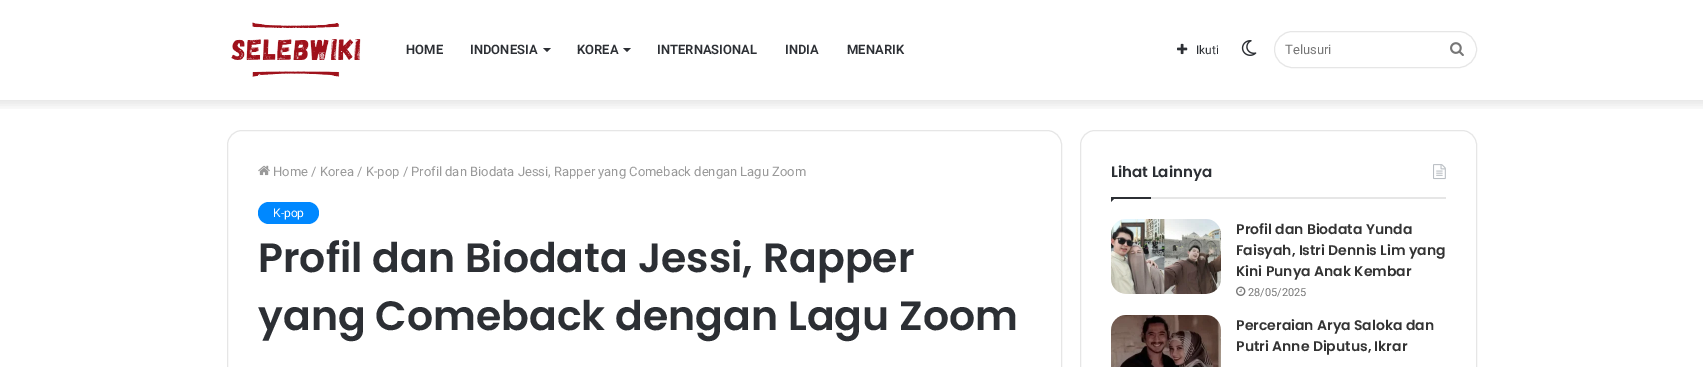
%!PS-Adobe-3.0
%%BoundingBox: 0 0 1703 367
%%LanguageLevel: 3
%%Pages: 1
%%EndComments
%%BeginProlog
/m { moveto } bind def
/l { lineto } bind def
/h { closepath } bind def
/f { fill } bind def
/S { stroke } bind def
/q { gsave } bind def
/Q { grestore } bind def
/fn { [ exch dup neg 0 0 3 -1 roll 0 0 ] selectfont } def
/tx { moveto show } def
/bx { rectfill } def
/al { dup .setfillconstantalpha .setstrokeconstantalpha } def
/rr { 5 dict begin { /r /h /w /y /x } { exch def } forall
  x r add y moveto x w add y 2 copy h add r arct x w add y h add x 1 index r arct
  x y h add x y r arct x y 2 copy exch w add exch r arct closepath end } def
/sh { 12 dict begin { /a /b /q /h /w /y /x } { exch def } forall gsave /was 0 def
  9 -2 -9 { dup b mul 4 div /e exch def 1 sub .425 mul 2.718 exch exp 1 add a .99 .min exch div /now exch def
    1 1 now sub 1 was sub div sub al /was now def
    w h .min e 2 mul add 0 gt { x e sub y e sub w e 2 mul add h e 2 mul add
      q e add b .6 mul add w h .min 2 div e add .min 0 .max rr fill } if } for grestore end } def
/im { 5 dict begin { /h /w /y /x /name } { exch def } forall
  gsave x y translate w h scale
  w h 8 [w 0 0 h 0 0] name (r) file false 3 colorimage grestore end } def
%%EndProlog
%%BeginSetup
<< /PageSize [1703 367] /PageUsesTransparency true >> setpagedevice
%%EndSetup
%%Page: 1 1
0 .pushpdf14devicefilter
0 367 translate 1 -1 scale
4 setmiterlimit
1 setgray
0 0 1703 367 bx
q
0 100 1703 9 rectclip
0 setgray
-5 -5 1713 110 0 5 0.1 sh
Q
(image0.raw) 231 22 130 55 im
/Roboto-SemiBold 13 fn
0.173 0.184 0.204 setrgbcolor
(HOME) 406 54 tx
(INDONESIA) 470 54 tx
543 48 m 551 48 l 547 52 l h f
(KOREA) 577 54 tx
623 48 m 631 48 l 627 52 l h f
(INTERNASIONAL) 657 54 tx
(INDIA) 785 54 tx
(MENARIK) 847 54 tx
(image1.raw) 1177 43 11 12 im
/Roboto-Regular 12 fn
(Ikuti) 1196 54 tx
(image2.raw) 1241 40 16 16 im
0.902 setgray
1274.5 31.5 202 36 18 rr S
/Roboto-Regular 13 fn
0.463 setgray
(Telusuri) 1285 54 tx
(image3.raw) 1450 42 14 14 im
0.902 setgray
227.5 130.5 834 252 14.5 rr S
(image4.raw) 258 165 12 11 im
0.6 setgray
(Home / Korea / K-pop / Profil dan Biodata Jessi, Rapper yang Comeback dengan Lagu Zoom) 273 176 tx
0 0.533 1 setrgbcolor
258 202 61 22 11 rr f
/Roboto-Regular 12 fn
1 setgray
(K-pop) 273 217 tx
/Poppins-SemiBold 41 fn
0.173 0.184 0.204 setrgbcolor
(Profil dan Biodata Jessi, Rapper) 258 272 tx
(yang Comeback dengan Lagu Zoom) 258 330 tx
0.902 setgray
1080.5 130.5 396 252 14.5 rr S
1151 197 295 2 bx
/Poppins-SemiBold 15 fn
0.173 0.184 0.204 setrgbcolor
(Lihat Lainnya) 1111 177 tx
(image5.raw) 1433 164 13 16 im
1111 197 m 1116 197 l 1111 202 l h f
1111 197 40 2 bx
(image6.raw) 1111 219 110 75 im
/Poppins-SemiBold 14 fn
0.2 setgray
(Profil dan Biodata Yunda) 1236 234 tx
(Faisyah, Istri Dennis Lim yang) 1236 255 tx
(Kini Punya Anak Kembar) 1236 276 tx
(image7.raw) 1236 286 10 10 im
/Roboto-Regular 11 fn
0.463 setgray
(28/05/2025) 1248 296 tx
(image8.raw) 1111 315 110 52 im
/Poppins-SemiBold 14 fn
0.2 setgray
(Perceraian Arya Saloka dan) 1236 330 tx
(Putri Anne Diputus, Ikrar) 1236 351 tx
.poppdf14devicefilter showpage
%%EOF
